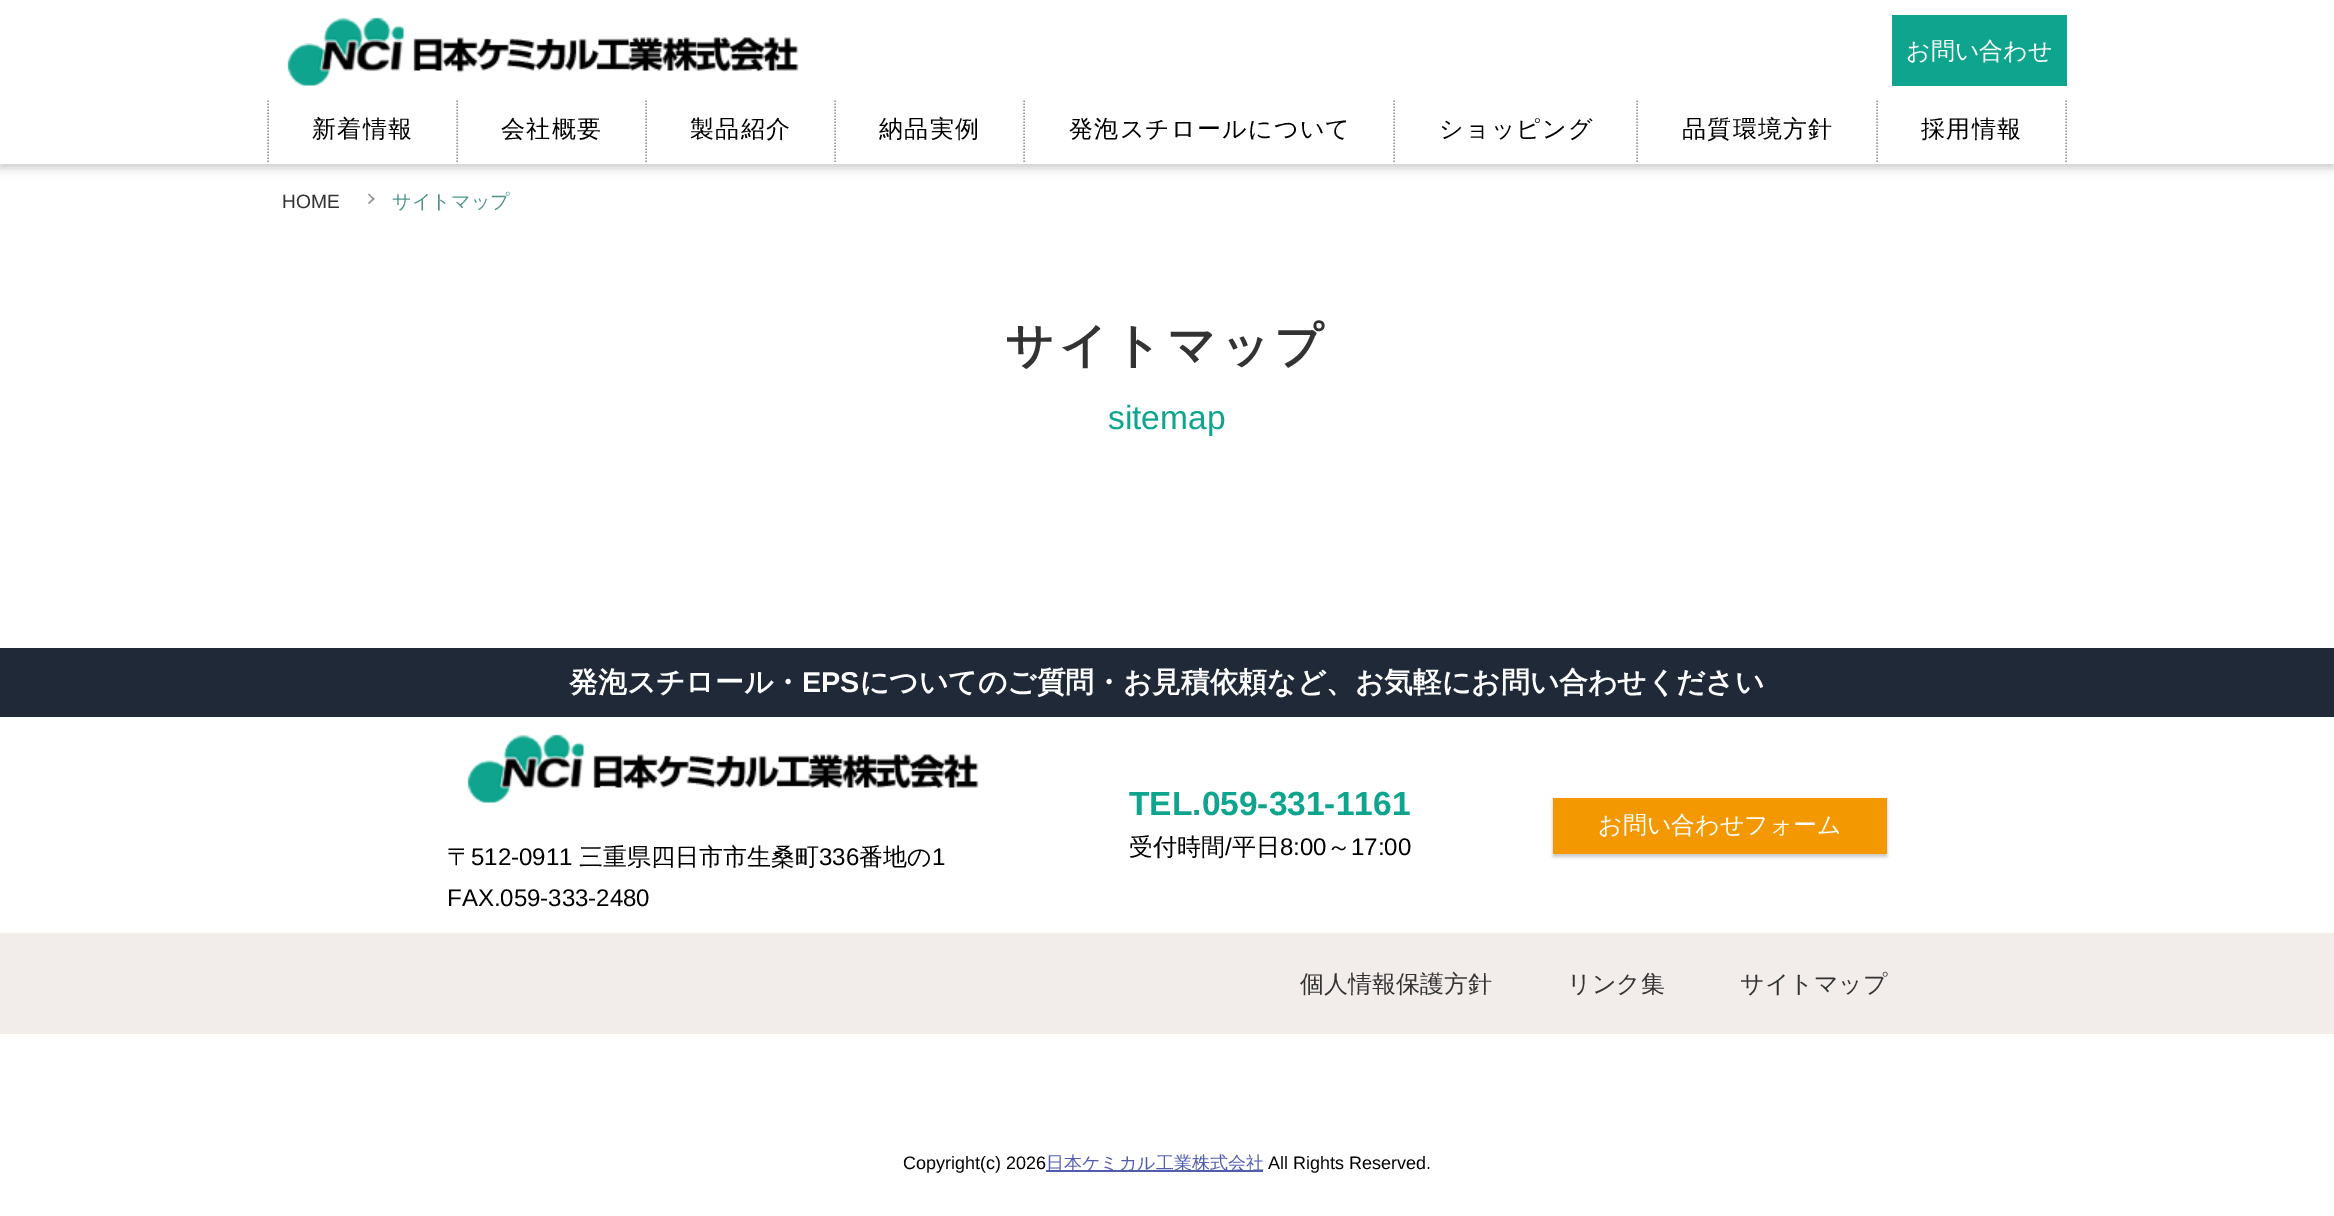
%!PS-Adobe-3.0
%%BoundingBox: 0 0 2334 1216
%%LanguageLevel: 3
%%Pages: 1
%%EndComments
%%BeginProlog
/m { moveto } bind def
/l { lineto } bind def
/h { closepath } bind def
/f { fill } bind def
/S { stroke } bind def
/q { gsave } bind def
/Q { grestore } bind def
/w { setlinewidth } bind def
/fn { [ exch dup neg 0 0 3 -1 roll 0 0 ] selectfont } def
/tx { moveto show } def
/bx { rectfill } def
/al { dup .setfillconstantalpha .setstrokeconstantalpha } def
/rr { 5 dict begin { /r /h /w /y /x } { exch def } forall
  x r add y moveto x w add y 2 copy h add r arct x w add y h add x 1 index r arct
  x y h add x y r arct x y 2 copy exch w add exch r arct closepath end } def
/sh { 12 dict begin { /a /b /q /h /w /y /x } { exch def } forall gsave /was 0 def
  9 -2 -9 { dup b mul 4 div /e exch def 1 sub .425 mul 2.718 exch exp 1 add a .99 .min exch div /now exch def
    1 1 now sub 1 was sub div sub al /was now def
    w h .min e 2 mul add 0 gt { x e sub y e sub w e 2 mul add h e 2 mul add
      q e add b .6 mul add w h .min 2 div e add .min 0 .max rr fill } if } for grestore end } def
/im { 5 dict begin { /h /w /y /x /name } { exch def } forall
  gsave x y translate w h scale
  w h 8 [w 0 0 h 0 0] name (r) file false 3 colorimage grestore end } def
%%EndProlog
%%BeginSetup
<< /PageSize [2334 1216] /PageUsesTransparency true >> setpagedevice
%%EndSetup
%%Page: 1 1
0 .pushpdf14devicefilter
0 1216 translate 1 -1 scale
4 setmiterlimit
1 setgray
0 0 2334 1216 bx
q
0 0 m 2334 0 l 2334 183 l 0 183 l h 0 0 m 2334 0 l 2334 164 l 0 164 l h eoclip newpath
0 setgray
0 5 2334 163 0 4.5 0.2 sh
Q
0.9 al
0 163 2334 1 bx
1 al
(image0.raw) 287 17 512 69 im
0.059 0.643 0.553 setrgbcolor
1892 15 175 71 bx
/WenQuanYiZenHei-Medium 24 fn
1 setgray
(お問い合わせ) 1906 59 tx
0.6 setgray
1.5 w
[1.5 1.5] 0 setdash
457 100.5 m 457 163.5 l S
268 100.5 m 268 163.5 l S
0 setgray
312 137 m 1.25 0 (新着情報) ashow
0.6 setgray
646 100.5 m 646 163.5 l S
0 setgray
501 137 m 1.25 0 (会社概要) ashow
0.6 setgray
835 100.5 m 835 163.5 l S
0 setgray
690 137 m 1.25 0 (製品紹介) ashow
0.6 setgray
1024 100.5 m 1024 163.5 l S
0 setgray
879 137 m 1.25 0 (納品実例) ashow
0.6 setgray
1394 100.5 m 1394 163.5 l S
0 setgray
1069 137 m 1.25 0 (発泡スチロールについて) ashow
0.6 setgray
1637 100.5 m 1637 163.5 l S
0 setgray
1439 137 m 1.25 0 (ショッピング) ashow
0.6 setgray
1877 100.5 m 1877 163.5 l S
0 setgray
1682 137 m 1.25 0 (品質環境方針) ashow
0.6 setgray
2066 100.5 m 2066 163.5 l S
0 setgray
1921 137 m 1.25 0 (採用情報) ashow
/LiberationSans-Regular 19.25 fn
0.2 setgray
(HOME) 282 208 tx
0.584 setgray
369 193.5 m 374.5 199 l 373.5 200 l 368 194.5 l h f
373.5 197.5 m 374.5 199 l 369 204 l 368 203 l h f
/WenQuanYiZenHei-Medium 19.25 fn
0.31 0.58 0.537 setrgbcolor
(サイトマップ) 392 208 tx
/WenQuanYiZenHei-Bold 48 fn
0.2 setgray
1005 362 m 4.75 0 (サイトマップ) ashow
/LiberationSans-Regular 33.5 fn
0.059 0.643 0.553 setrgbcolor
(sitemap) 1108 429 tx
0.122 0.161 0.22 setrgbcolor
0 648 2334 69 bx
/WenQuanYiZenHei-Bold 28.75 fn
1 setgray
(発泡スチロール・) 569 692 tx
/LiberationSans-Bold 28.75 fn
(EPS) 802 692 tx
/WenQuanYiZenHei-Bold 28.75 fn
(についてのご質問・お見積依頼など、) 860 692 tx
(お気軽にお問い合わせください) 1355 692 tx
/LiberationSans-Bold 33.5 fn
0.059 0.643 0.553 setrgbcolor
(TEL.059-331-1161) 1129 815 tx
/WenQuanYiZenHei-Medium 24 fn
0 setgray
(受付時間) 1129 855 tx
/LiberationSans-Regular 24 fn
(/) 1225 855 tx
/WenQuanYiZenHei-Medium 24 fn
(平日) 1232 855 tx
/LiberationSans-Regular 24 fn
(8:00) 1280 855 tx
/WenQuanYiZenHei-Medium 24 fn
(～) 1327 855 tx
/LiberationSans-Regular 24 fn
(17:00) 1351 855 tx
1553 801 334 56 0 1.5 0.2 sh
0.953 0.596 0 setrgbcolor
1553 798 334 56 bx
/WenQuanYiZenHei-Medium 24 fn
1 setgray
(お問い合わせフォーム) 1598 833 tx
(image1.raw) 467 734 512 69 im
0 setgray
(〒) 447 865 tx
/LiberationSans-Regular 24 fn
(512-0911) 471 865 tx
/WenQuanYiZenHei-Medium 24 fn
(三重県四日市市生桑町) 579 865 tx
/LiberationSans-Regular 24 fn
(336) 819 865 tx
/WenQuanYiZenHei-Medium 24 fn
(番地の) 859 865 tx
/LiberationSans-Regular 24 fn
(1) 932 865 tx
(FAX.059-333-2480) 447 906 tx
0.949 0.929 0.922 setrgbcolor
0 933 2334 101 bx
/WenQuanYiZenHei-Medium 24 fn
0.2 setgray
(個人情報保護方針) 1300 992 tx
(リンク集) 1567 992 tx
(サイトマップ) 1740 992 tx
/LiberationSans-Regular 18 fn
0 setgray
(Copyright\(c\) 2026) 903 1169 tx
0.318 0.361 0.682 setrgbcolor
1046 1170 217 2 bx
/WenQuanYiZenHei-Medium 18 fn
(日本ケミカル工業株式会社) 1046 1169 tx
/LiberationSans-Regular 18 fn
0 setgray
(All Rights Reserved.) 1268 1169 tx
.poppdf14devicefilter showpage
%%EOF
